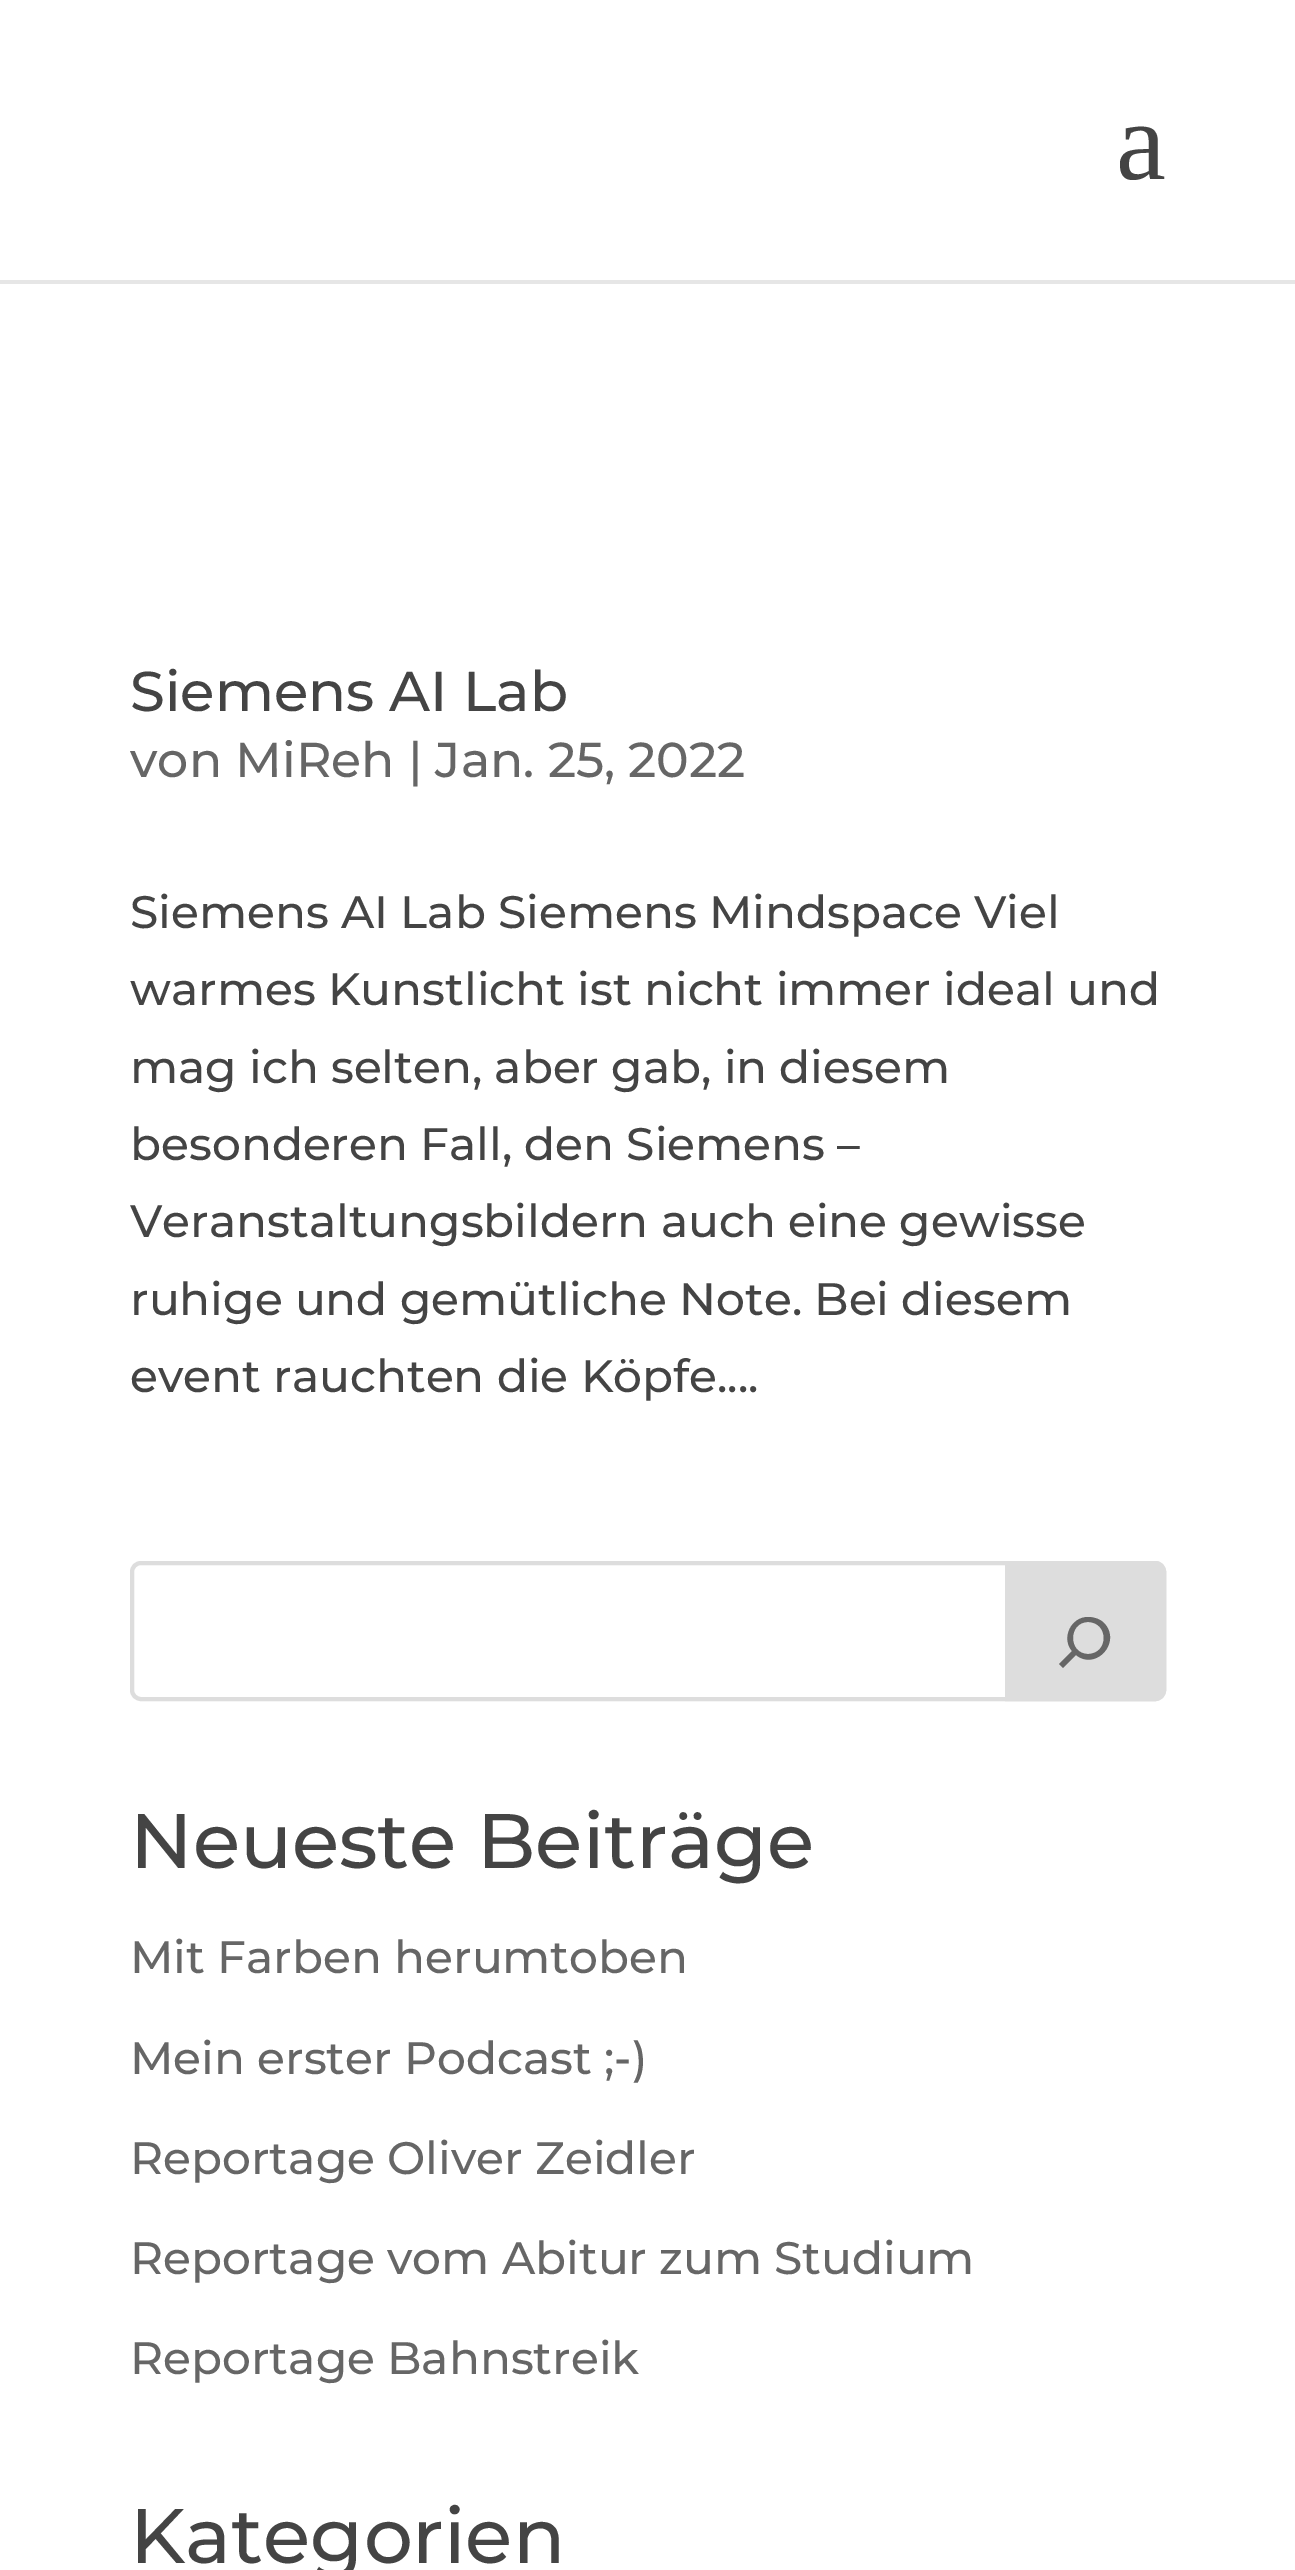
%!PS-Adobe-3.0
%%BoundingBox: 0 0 1295 2570
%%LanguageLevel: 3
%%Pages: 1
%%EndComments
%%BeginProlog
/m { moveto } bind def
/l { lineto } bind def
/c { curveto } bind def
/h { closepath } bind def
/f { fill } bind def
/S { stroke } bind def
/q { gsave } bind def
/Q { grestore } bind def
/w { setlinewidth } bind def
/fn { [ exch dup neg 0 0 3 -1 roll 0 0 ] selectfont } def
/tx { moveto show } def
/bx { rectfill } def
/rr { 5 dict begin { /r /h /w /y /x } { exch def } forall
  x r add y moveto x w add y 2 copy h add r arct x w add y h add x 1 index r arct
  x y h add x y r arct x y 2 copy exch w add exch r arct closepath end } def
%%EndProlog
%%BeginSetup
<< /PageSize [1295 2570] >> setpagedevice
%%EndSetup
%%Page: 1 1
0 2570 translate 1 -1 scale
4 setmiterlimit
1 setgray
0 0 1295 2570 bx
0.902 setgray
0 280 1295 4 bx
/LiberationSerif-Regular 112 fn
0.267 setgray
(a) 1116 179 tx
/Montserrat-Medium 56 fn
(Siemens AI Lab) 130 711 tx
/Montserrat-Medium 49 fn
0.4 setgray
(von MiReh | Jan. 25, 2022) 130 777 tx
/Montserrat-Medium 45.5 fn
0.267 setgray
(Siemens AI Lab Siemens Mindspace Viel) 130 928 tx
(warmes Kunstlicht ist nicht immer ideal und) 130 1005 tx
(mag ich selten, aber gab, in diesem) 130 1083 tx
(besonderen Fall, den Siemens –) 130 1160 tx
(Veranstaltungsbildern auch eine gewisse) 130 1237 tx
(ruhige und gemütliche Note. Bei diesem) 130 1315 tx
(event rauchten die Köpfe....) 130 1392 tx
0.867 setgray
4 w
132 1563 1032 136 9 rr S
1007 1563 m 1155 1563 l 1160 1563 1164 1567 1164 1572 c 1164 1690 l 1164 1695 1160 1699 1155 1699 c 1007 1699 l h q f Q
S
0.4 setgray
1088 1617 m 1071 1617 1061 1638 1072 1651 c 1059 1664 l 1063 1668 l 1076 1655 l 1096 1671 1122 1642 1104 1623 c 1100 1619 1094 1617 1088 1617 c h 1088 1654 m 1068 1654 1068 1622 1088 1622 c 1109 1622 1109 1654 1088 1654 c h f
/Montserrat-Medium 77 fn
0.267 setgray
(Neueste Beiträge) 130 1868 tx
/Montserrat-Medium 45.5 fn
0.4 setgray
(Mit Farben herumtoben) 130 1973 tx
(Mein erster Podcast ;-\)) 130 2074 tx
(Reportage Oliver Zeidler) 130 2174 tx
(Reportage vom Abitur zum Studium) 130 2274 tx
(Reportage Bahnstreik) 130 2374 tx
/Montserrat-Medium 77 fn
0.267 setgray
(Kategorien) 130 2563 tx
showpage
%%EOF
